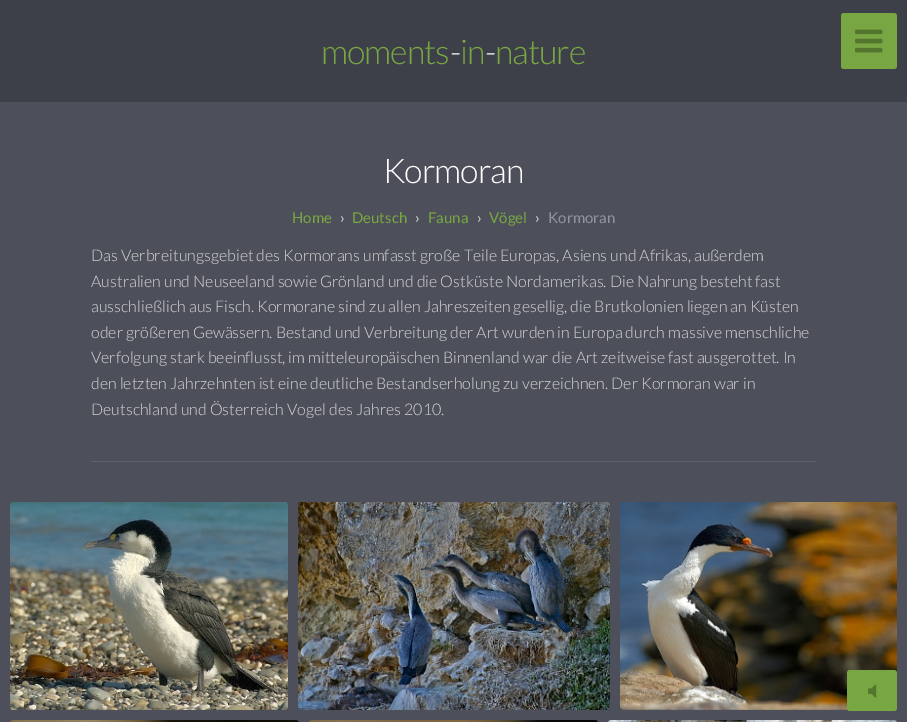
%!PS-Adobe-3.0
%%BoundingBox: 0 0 907 722
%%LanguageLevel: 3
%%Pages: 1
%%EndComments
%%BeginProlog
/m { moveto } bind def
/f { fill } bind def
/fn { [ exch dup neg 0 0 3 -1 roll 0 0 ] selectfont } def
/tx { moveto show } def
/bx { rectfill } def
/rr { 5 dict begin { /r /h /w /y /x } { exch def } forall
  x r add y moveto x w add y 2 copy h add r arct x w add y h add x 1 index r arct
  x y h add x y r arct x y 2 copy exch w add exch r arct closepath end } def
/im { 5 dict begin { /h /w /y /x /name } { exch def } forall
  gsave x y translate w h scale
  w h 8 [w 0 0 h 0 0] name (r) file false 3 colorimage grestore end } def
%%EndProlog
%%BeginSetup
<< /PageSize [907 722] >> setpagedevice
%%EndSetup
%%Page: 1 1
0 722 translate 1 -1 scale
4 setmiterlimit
0.302 0.314 0.357 setrgbcolor
0 0 907 722 bx
0.243 0.251 0.286 setrgbcolor
0 0 907 102 bx
/Lato-Light 34 fn
0.471 0.651 0.259 setrgbcolor
321 64 m -1 0 (moments) ashow
1 setgray
450 64 m -1 0 (-) ashow
0.471 0.651 0.259 setrgbcolor
460 64 m -1 0 (in) ashow
1 setgray
485 64 m -1 0 (-) ashow
0.471 0.651 0.259 setrgbcolor
495 64 m -1 0 (nature) ashow
1 setgray
383 183 m -1 0 (Kormoran) ashow
/Lato-Regular 15 fn
0.471 0.651 0.259 setrgbcolor
(Home) 292 223 tx
0.851 setgray
(›) 340 223 tx
0.471 0.651 0.259 setrgbcolor
(Deutsch) 352 223 tx
0.851 setgray
(›) 415 223 tx
0.471 0.651 0.259 setrgbcolor
(Fauna) 428 223 tx
0.851 setgray
(›) 477 223 tx
0.471 0.651 0.259 setrgbcolor
(Vögel) 489 223 tx
0.851 setgray
(›) 535 223 tx
0.565 0.58 0.631 setrgbcolor
(Kormoran) 548 223 tx
/Lato-Light 16 fn
0.851 setgray
(Das Verbreitungsgebiet des Kormorans umfasst große Teile Europas, Asiens und Afrikas, außerdem) 91 261 tx
(Australien und Neuseeland sowie Grönland und die Ostküste Nordamerikas. Die Nahrung besteht fast) 91 287 tx
(ausschließlich aus Fisch. Kormorane sind zu allen Jahreszeiten gesellig, die Brutkolonien liegen an Küsten) 91 312 tx
(oder größeren Gewässern. Bestand und Verbreitung der Art wurden in Europa durch massive menschliche) 91 338 tx
(Verfolgung stark beeinflusst, im mitteleuropäischen Binnenland war die Art zeitweise fast ausgerottet. In) 91 363 tx
(den letzten Jahrzehnten ist eine deutliche Bestandserholung zu verzeichnen. Der Kormoran war in) 91 389 tx
(Deutschland und Österreich Vogel des Jahres 2010.) 91 415 tx
0.365 0.376 0.431 setrgbcolor
91 461 725 1 bx
(image0.raw) 10 502 278 208 im
0.255 0.267 0.302 setrgbcolor
298 502 312 208 3 rr f
(image1.raw) 298 502 312 208 im
620 502 277 208 3 rr f
(image2.raw) 620 502 277 208 im
(image3.raw) 10 720 289 2 im
(image4.raw) 309 720 289 2 im
(image5.raw) 608 720 289 2 im
0.471 0.651 0.259 setrgbcolor
841 13 56 56 3 rr f
(image6.raw) 855 29 28 24 im
847 670 50 41 3 rr f
(image7.raw) 868 684 9 14 im
showpage
%%EOF
